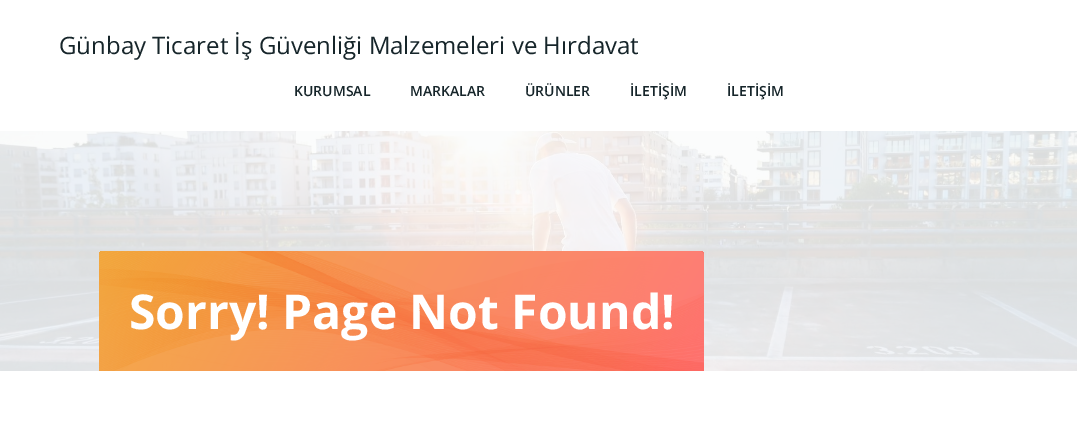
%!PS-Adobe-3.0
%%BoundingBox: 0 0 1077 434
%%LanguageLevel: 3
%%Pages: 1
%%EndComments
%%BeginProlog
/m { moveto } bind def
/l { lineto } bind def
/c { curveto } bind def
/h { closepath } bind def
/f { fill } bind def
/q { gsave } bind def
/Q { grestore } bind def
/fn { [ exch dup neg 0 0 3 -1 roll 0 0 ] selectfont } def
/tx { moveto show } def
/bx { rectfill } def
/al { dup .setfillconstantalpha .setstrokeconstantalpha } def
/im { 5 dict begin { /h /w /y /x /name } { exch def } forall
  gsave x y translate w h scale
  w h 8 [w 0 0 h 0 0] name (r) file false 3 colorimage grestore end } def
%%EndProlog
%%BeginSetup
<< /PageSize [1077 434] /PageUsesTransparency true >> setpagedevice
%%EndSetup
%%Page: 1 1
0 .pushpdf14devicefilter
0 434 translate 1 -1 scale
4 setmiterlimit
1 setgray
0 0 1077 434 bx
/OpenSans-Regular 24 fn
0.086 0.145 0.165 setrgbcolor
(Günbay Ticaret İş Güvenliği Malzemeleri ve Hırdavat) 59 54 tx
/OpenSans-SemiBold 14 fn
(KURUMSAL) 294 96 tx
(MARKALAR) 410 96 tx
(ÜRÜNLER) 525 96 tx
(İLETİŞİM) 630 96 tx
(İLETİŞİM) 727 96 tx
(image0.raw) 0 131 1077 240 im
1 setgray
104 251 m 699 251 l 702 251 704 253 704 256 c 704 371 l 99 371 l 99 256 l 99 253 101 251 104 251 c h f
(image1.raw) 99 251 605 120 im
0.8 al
q 104 251 m 699 251 l 702 251 704 253 704 256 c 704 371 l 99 371 l 99 256 l 99 253 101 251 104 251 c h clip newpath
<< /ShadingType 2 /ColorSpace /DeviceRGB /Coords [655 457 148 165] /Extend [true true] /Function << /FunctionType 2 /Domain [0 1] /C0 [1 0.345 0.345] /C1 [0.941 0.596 0.098] /N 1 >> >> shfill Q
/OpenSans-Bold 48 fn
1 al
(Sorry! Page Not Found!) 129 329 tx
.poppdf14devicefilter showpage
%%EOF
